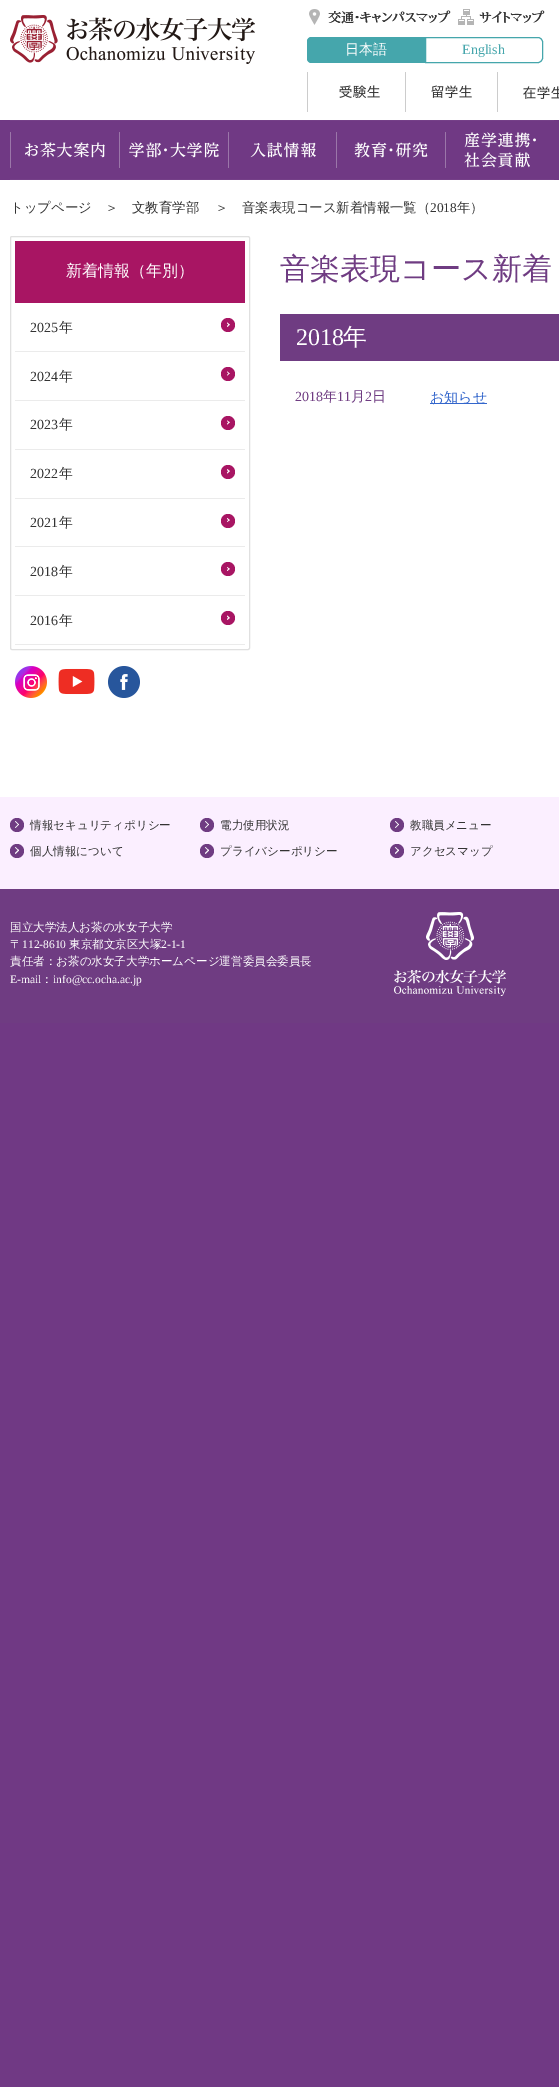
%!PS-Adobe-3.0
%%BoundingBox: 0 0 559 2087
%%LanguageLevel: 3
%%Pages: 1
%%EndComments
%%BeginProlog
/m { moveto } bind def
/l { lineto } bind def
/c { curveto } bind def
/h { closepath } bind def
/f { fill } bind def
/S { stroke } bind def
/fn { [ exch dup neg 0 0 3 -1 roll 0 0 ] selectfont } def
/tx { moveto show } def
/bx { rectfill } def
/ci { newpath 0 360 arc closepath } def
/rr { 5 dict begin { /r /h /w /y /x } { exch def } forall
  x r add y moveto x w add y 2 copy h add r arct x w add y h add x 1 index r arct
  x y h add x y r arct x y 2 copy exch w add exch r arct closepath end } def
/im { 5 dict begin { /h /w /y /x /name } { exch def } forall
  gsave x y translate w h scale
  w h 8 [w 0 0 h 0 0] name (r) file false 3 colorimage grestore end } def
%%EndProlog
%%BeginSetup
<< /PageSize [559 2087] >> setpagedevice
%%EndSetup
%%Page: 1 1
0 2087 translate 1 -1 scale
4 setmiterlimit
0.439 0.224 0.518 setrgbcolor
0 0 559 2087 bx
1 setgray
0 0 559 797 bx
(image0.raw) 10 15 245 49 im
(image1.raw) 309 9 142 16 im
(image2.raw) 458 9 87 16 im
0.271 0.651 0.675 setrgbcolor
312 37 m 425 37 l 425 63 l 312 63 l 309 63 307 61 307 58 c 307 42 l 307 39 309 37 312 37 c h f
312 37 m 425 37 l 425 63 l 312 63 l 309 63 307 61 307 58 c 307 42 l 307 39 309 37 312 37 c h 312 38 m 425 38 l 425 62 l 312 62 l 310 62 308 60 308 58 c 308 42 l 308 40 310 38 312 38 c h eofill
/WenQuanYiZenHei-Medium 14 fn
1 setgray
(日本語) 345 54 tx
0.271 0.651 0.675 setrgbcolor
425.5 37.5 m 538 37.5 l 540.5 37.5 542.5 39.5 542.5 42 c 542.5 58 l 542.5 60.5 540.5 62.5 538 62.5 c 425.5 62.5 l h S
/LiberationSerif-Regular 14 fn
(English) 462 54 tx
(image3.raw) 307 72 73 40 im
(image4.raw) 405 72 67 40 im
(image5.raw) 497 72 62 40 im
0.439 0.224 0.518 setrgbcolor
0 120 559 60 bx
(image6.raw) 10 120 109 60 im
(image7.raw) 119 120 109 60 im
(image8.raw) 228 120 108 60 im
(image9.raw) 336 120 109 60 im
(image10.raw) 445 120 109 60 im
/WenQuanYiZenHei-Medium 13.4 fn
0.2 setgray
(トップページ) 10 212 tx
(＞) 105 212 tx
(文教育学部) 132 212 tx
(＞) 215 212 tx
(音楽表現コース新着情報一覧（) 242 212 tx
/LiberationSerif-Regular 13.4 fn
(2018) 430 212 tx
/WenQuanYiZenHei-Medium 13.4 fn
(年）) 457 212 tx
0.878 setgray
10.5 236.5 239 413 1.5 rr S
0.659 0.082 0.388 setrgbcolor
15 241 230 62 bx
/WenQuanYiZenHei-Medium 16 fn
1 setgray
(新着情報（年別）) 66 276 tx
0.922 setgray
15 351 230 1 bx
/LiberationSerif-Regular 14 fn
0.2 setgray
(2025) 30 332 tx
/WenQuanYiZenHei-Medium 14 fn
(年) 59 332 tx
0.659 0.082 0.388 setrgbcolor
228 325 7 ci f
1 setgray
227.5 322.5 m 229.5 324.5 l 229 325.5 l 227 323 l h f
229 324 m 229.5 324.5 l 227.5 327 l 227 326 l h f
0.922 setgray
15 400 230 1 bx
/LiberationSerif-Regular 14 fn
0.2 setgray
(2024) 30 381 tx
/WenQuanYiZenHei-Medium 14 fn
(年) 59 381 tx
0.659 0.082 0.388 setrgbcolor
228 374 7 ci f
1 setgray
227.5 371.5 m 229.5 373.5 l 229 374 l 227 372 l h f
229 373 m 229.5 373.5 l 227.5 375.5 l 227 375 l h f
0.922 setgray
15 449 230 1 bx
/LiberationSerif-Regular 14 fn
0.2 setgray
(2023) 30 429 tx
/WenQuanYiZenHei-Medium 14 fn
(年) 59 429 tx
0.659 0.082 0.388 setrgbcolor
228 423 7 ci f
1 setgray
227.5 420.5 m 229.5 422.5 l 229 423 l 227 421 l h f
229 421.5 m 229.5 422.5 l 227.5 424.5 l 227 424 l h f
0.922 setgray
15 498 230 1 bx
/LiberationSerif-Regular 14 fn
0.2 setgray
(2022) 30 478 tx
/WenQuanYiZenHei-Medium 14 fn
(年) 59 478 tx
0.659 0.082 0.388 setrgbcolor
228 472 7 ci f
1 setgray
227.5 469 m 229.5 471 l 229 472 l 227 470 l h f
229 470.5 m 229.5 471 l 227.5 473.5 l 227 472.5 l h f
0.922 setgray
15 546 230 1 bx
/LiberationSerif-Regular 14 fn
0.2 setgray
(2021) 30 527 tx
/WenQuanYiZenHei-Medium 14 fn
(年) 59 527 tx
0.659 0.082 0.388 setrgbcolor
228 521 7 ci f
1 setgray
227.5 518 m 229.5 520 l 229 521 l 227 518.5 l h f
229 519.5 m 229.5 520 l 227.5 522 l 227 521.5 l h f
0.922 setgray
15 595 230 1 bx
/LiberationSerif-Regular 14 fn
0.2 setgray
(2018) 30 576 tx
/WenQuanYiZenHei-Medium 14 fn
(年) 59 576 tx
0.659 0.082 0.388 setrgbcolor
228 569 7 ci f
1 setgray
227.5 567 m 229.5 569 l 229 569.5 l 227 567.5 l h f
229 568 m 229.5 569 l 227.5 571 l 227 570.5 l h f
0.922 setgray
15 644 230 1 bx
/LiberationSerif-Regular 14 fn
0.2 setgray
(2016) 30 625 tx
/WenQuanYiZenHei-Medium 14 fn
(年) 59 625 tx
0.659 0.082 0.388 setrgbcolor
228 618 7 ci f
1 setgray
227.5 615.5 m 229.5 618 l 229 618.5 l 227 616.5 l h f
229 617 m 229.5 618 l 227.5 620 l 227 619 l h f
(image11.raw) 15 666 32 32 im
(image12.raw) 58 668 37 27 im
(image13.raw) 108 666 32 32 im
/WenQuanYiZenHei-Medium 30.1 fn
0.435 0.235 0.51 setrgbcolor
(音楽表現コース新着) 280 279 tx
280 314 279 47 bx
/LiberationSerif-Regular 24 fn
1 setgray
(2018) 296 345 tx
/WenQuanYiZenHei-Medium 24 fn
(年) 343 345 tx
/LiberationSerif-Regular 14 fn
0.435 0.235 0.51 setrgbcolor
(2018) 295 401 tx
/WenQuanYiZenHei-Medium 14 fn
(年) 323 401 tx
/LiberationSerif-Regular 14 fn
(11) 337 401 tx
/WenQuanYiZenHei-Medium 14 fn
(月) 351 401 tx
/LiberationSerif-Regular 14 fn
(2) 365 401 tx
/WenQuanYiZenHei-Medium 14 fn
(日) 372 401 tx
0.2 0.4 0.8 setrgbcolor
430 403 57 1 bx
(お知らせ) 430 402 tx
0.435 0.235 0.51 setrgbcolor
0 889 559 134 bx
0.984 0.937 1 setrgbcolor
0 797 559 92 bx
0.435 0.235 0.51 setrgbcolor
17 825 7 ci f
/WenQuanYiZenHei-Medium 11.55 fn
0.2 setgray
(情報セキュリティポリシー) 30 829 tx
1 setgray
15.5 821 m 19 824.5 l 18.5 825 l 15 821.5 l h f
18.5 824 m 19 824.5 l 15.5 828 l 15 827.5 l h f
0.435 0.235 0.51 setrgbcolor
207 825 7 ci f
0.2 setgray
(電力使用状況) 220 829 tx
1 setgray
205.5 821 m 209 824.5 l 208.5 825 l 205 821.5 l h f
208.5 824 m 209 824.5 l 205.5 828 l 205 827.5 l h f
0.435 0.235 0.51 setrgbcolor
397 825 7 ci f
0.2 setgray
(教職員メニュー) 410 829 tx
1 setgray
395.5 821 m 399 824.5 l 398.5 825 l 395 821.5 l h f
398.5 824 m 399 824.5 l 395.5 828 l 395 827.5 l h f
0.435 0.235 0.51 setrgbcolor
17 851 7 ci f
0.2 setgray
(個人情報について) 30 855 tx
1 setgray
15.5 847 m 19 850.5 l 18.5 851 l 15 847.5 l h f
18.5 849.5 m 19 850.5 l 15.5 854 l 15 853 l h f
0.435 0.235 0.51 setrgbcolor
207 851 7 ci f
0.2 setgray
(プライバシーポリシー) 220 855 tx
1 setgray
205.5 847 m 209 850.5 l 208.5 851 l 205 847.5 l h f
208.5 849.5 m 209 850.5 l 205.5 854 l 205 853 l h f
0.435 0.235 0.51 setrgbcolor
397 851 7 ci f
0.2 setgray
(アクセスマップ) 410 855 tx
1 setgray
395.5 847 m 399 850.5 l 398.5 851 l 395 847.5 l h f
398.5 849.5 m 399 850.5 l 395.5 854 l 395 853 l h f
(国立大学法人お茶の水女子大学) 10 931 tx
(〒) 10 948 tx
/LiberationSerif-Regular 11.55 fn
(112-8610) 22 948 tx
/WenQuanYiZenHei-Medium 11.55 fn
(東京都文京区大塚) 69 948 tx
/LiberationSerif-Regular 11.55 fn
(2-1-1) 161 948 tx
/WenQuanYiZenHei-Medium 11.55 fn
(責任者：お茶の水女子大学ホームページ運営委員会委員長) 10 965 tx
/LiberationSerif-Regular 11.55 fn
(E-mail) 10 983 tx
/WenQuanYiZenHei-Medium 11.55 fn
(：) 41 983 tx
/LiberationSerif-Regular 11.55 fn
(info@cc.ocha.ac.jp) 53 983 tx
(image14.raw) 394 912 112 84 im
showpage
%%EOF
